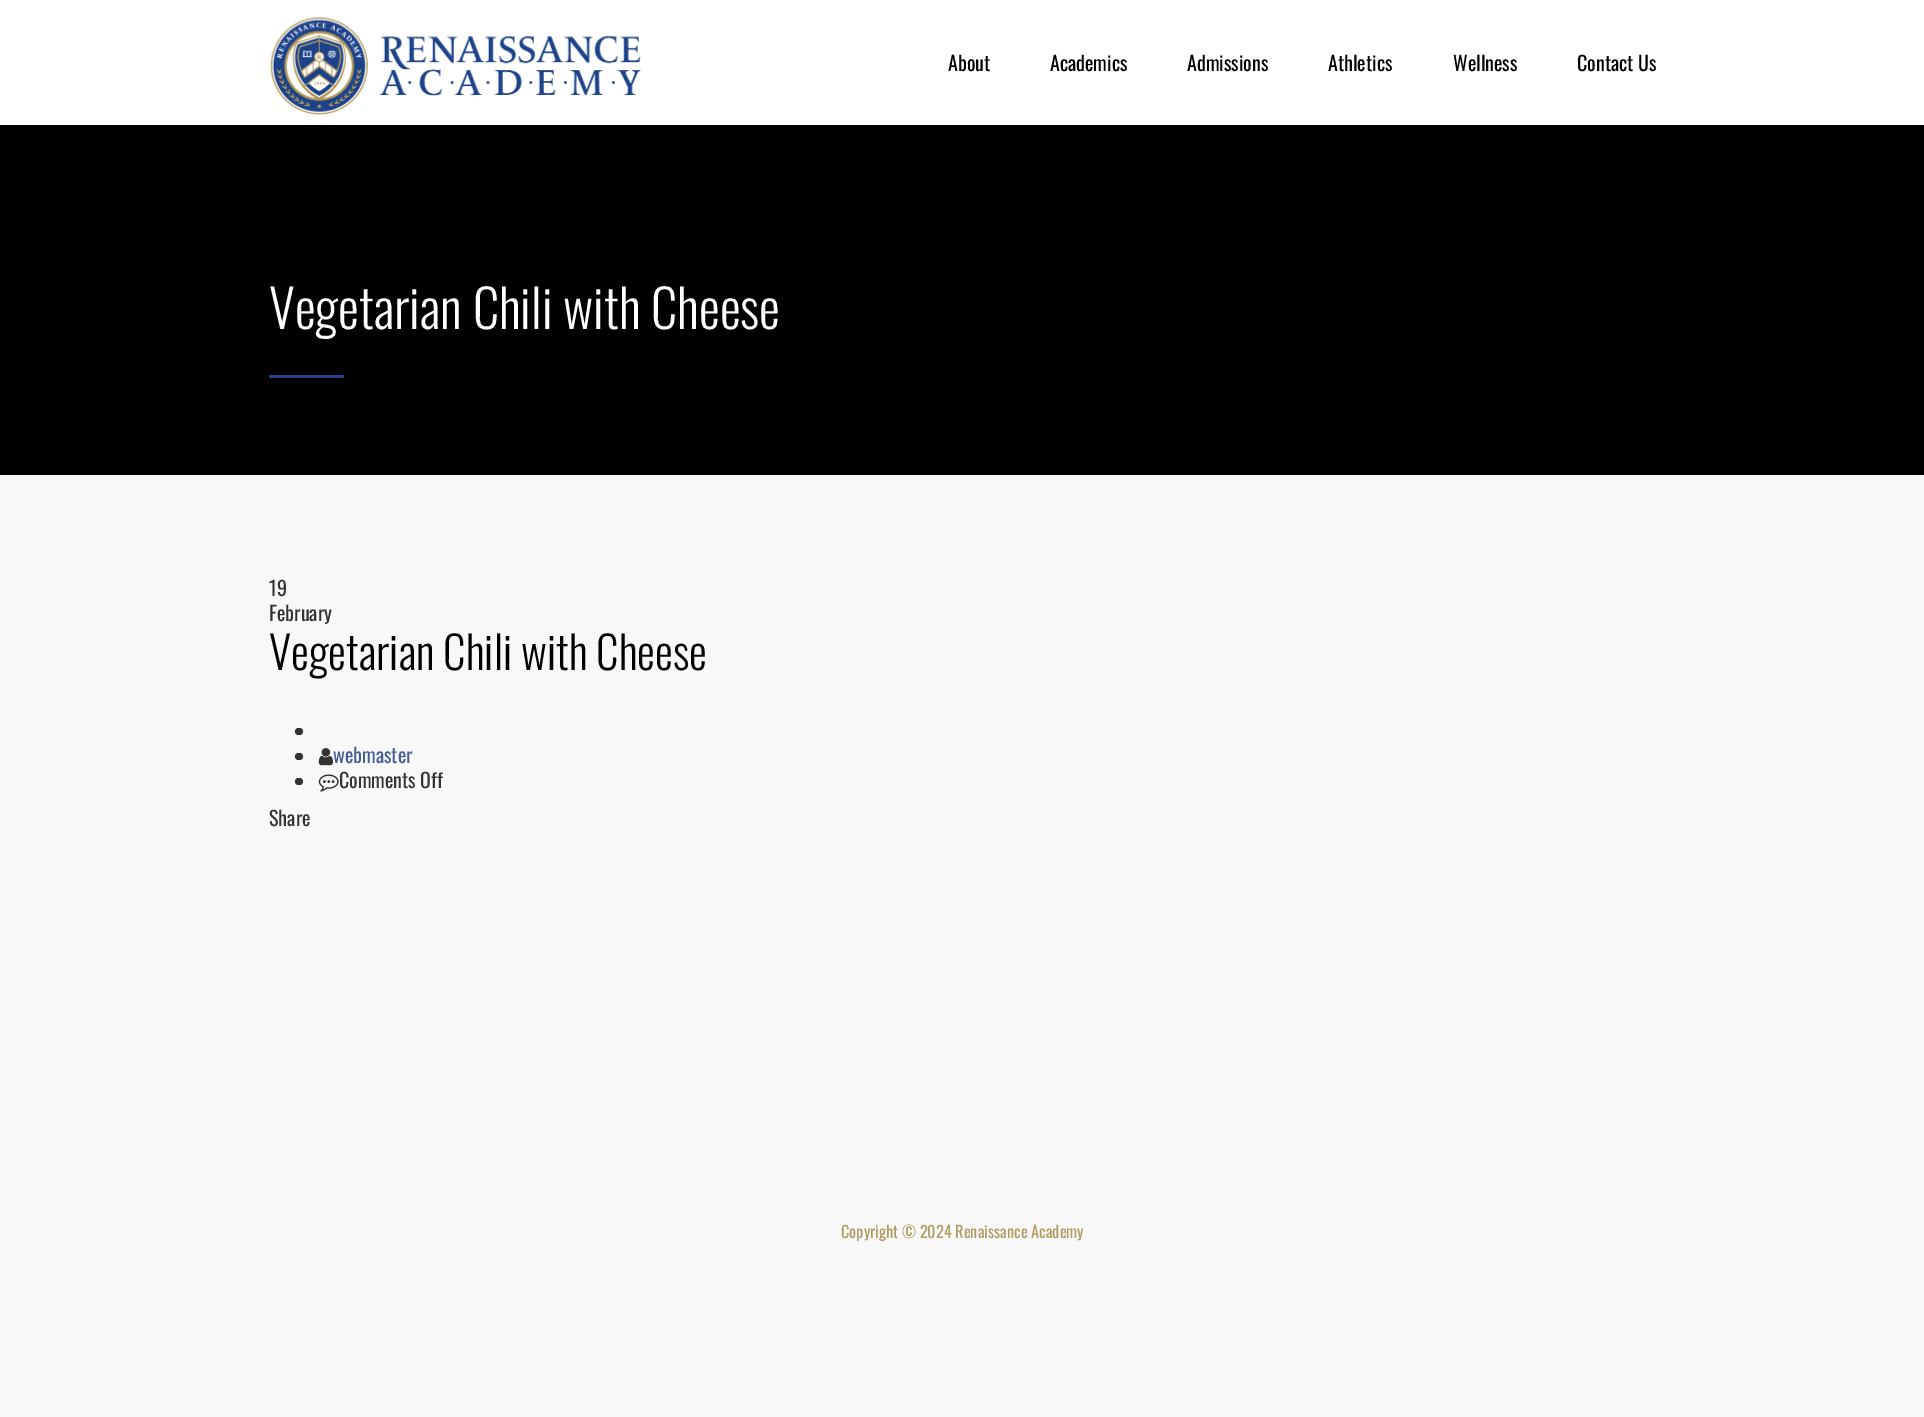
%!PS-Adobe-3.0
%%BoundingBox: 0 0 1924 1417
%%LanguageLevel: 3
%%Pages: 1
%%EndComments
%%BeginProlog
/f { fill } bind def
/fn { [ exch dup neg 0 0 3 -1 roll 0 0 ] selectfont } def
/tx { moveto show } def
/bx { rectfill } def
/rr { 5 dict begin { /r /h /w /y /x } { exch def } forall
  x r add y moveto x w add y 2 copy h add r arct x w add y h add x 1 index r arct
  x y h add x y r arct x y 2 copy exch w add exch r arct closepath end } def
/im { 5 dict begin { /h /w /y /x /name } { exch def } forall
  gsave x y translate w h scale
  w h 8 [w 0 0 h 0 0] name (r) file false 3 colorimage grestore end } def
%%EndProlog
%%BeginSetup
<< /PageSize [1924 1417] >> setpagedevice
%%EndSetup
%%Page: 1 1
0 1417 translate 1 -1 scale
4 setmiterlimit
0.973 setgray
0 0 1924 1417 bx
1 setgray
0 0 1924 125 bx
(image0.raw) 270 17 371 98 im
/Oswald-Regular 20 fn
0 setgray
(About) 948 71 tx
(Academics) 1050 71 tx
(Admissions) 1187 71 tx
(Athletics) 1328 71 tx
(Wellness) 1453 71 tx
(Contact Us) 1577 71 tx
0 125 1924 350 bx
/Oswald-Light 52.5 fn
1 setgray
(Vegetarian Chili with Cheese) 269 329 tx
0.149 0.255 0.518 setrgbcolor
269 375 75 3 bx
/Oswald-Regular 20 fn
0.2 setgray
(19) 269 596 tx
(February) 269 621 tx
/Oswald-Light 45 fn
0 setgray
(Vegetarian Chili with Cheese) 269 670 tx
0.2 setgray
295 728 8 7 3.5 rr f
295 753 8 7 3.5 rr f
(image1.raw) 318 748 15 18 im
/Oswald-Regular 20 fn
0.275 0.361 0.584 setrgbcolor
(webmaster) 333 763 tx
0.2 setgray
295 778 8 7 3.5 rr f
(image2.raw) 318 774 21 18 im
(Comments Off) 339 788 tx
(Share) 269 826 tx
/Oswald-Regular 16.25 fn
0.69 0.604 0.38 setrgbcolor
(Copyright © 2024 Renaissance Academy) 841 1238 tx
showpage
%%EOF
